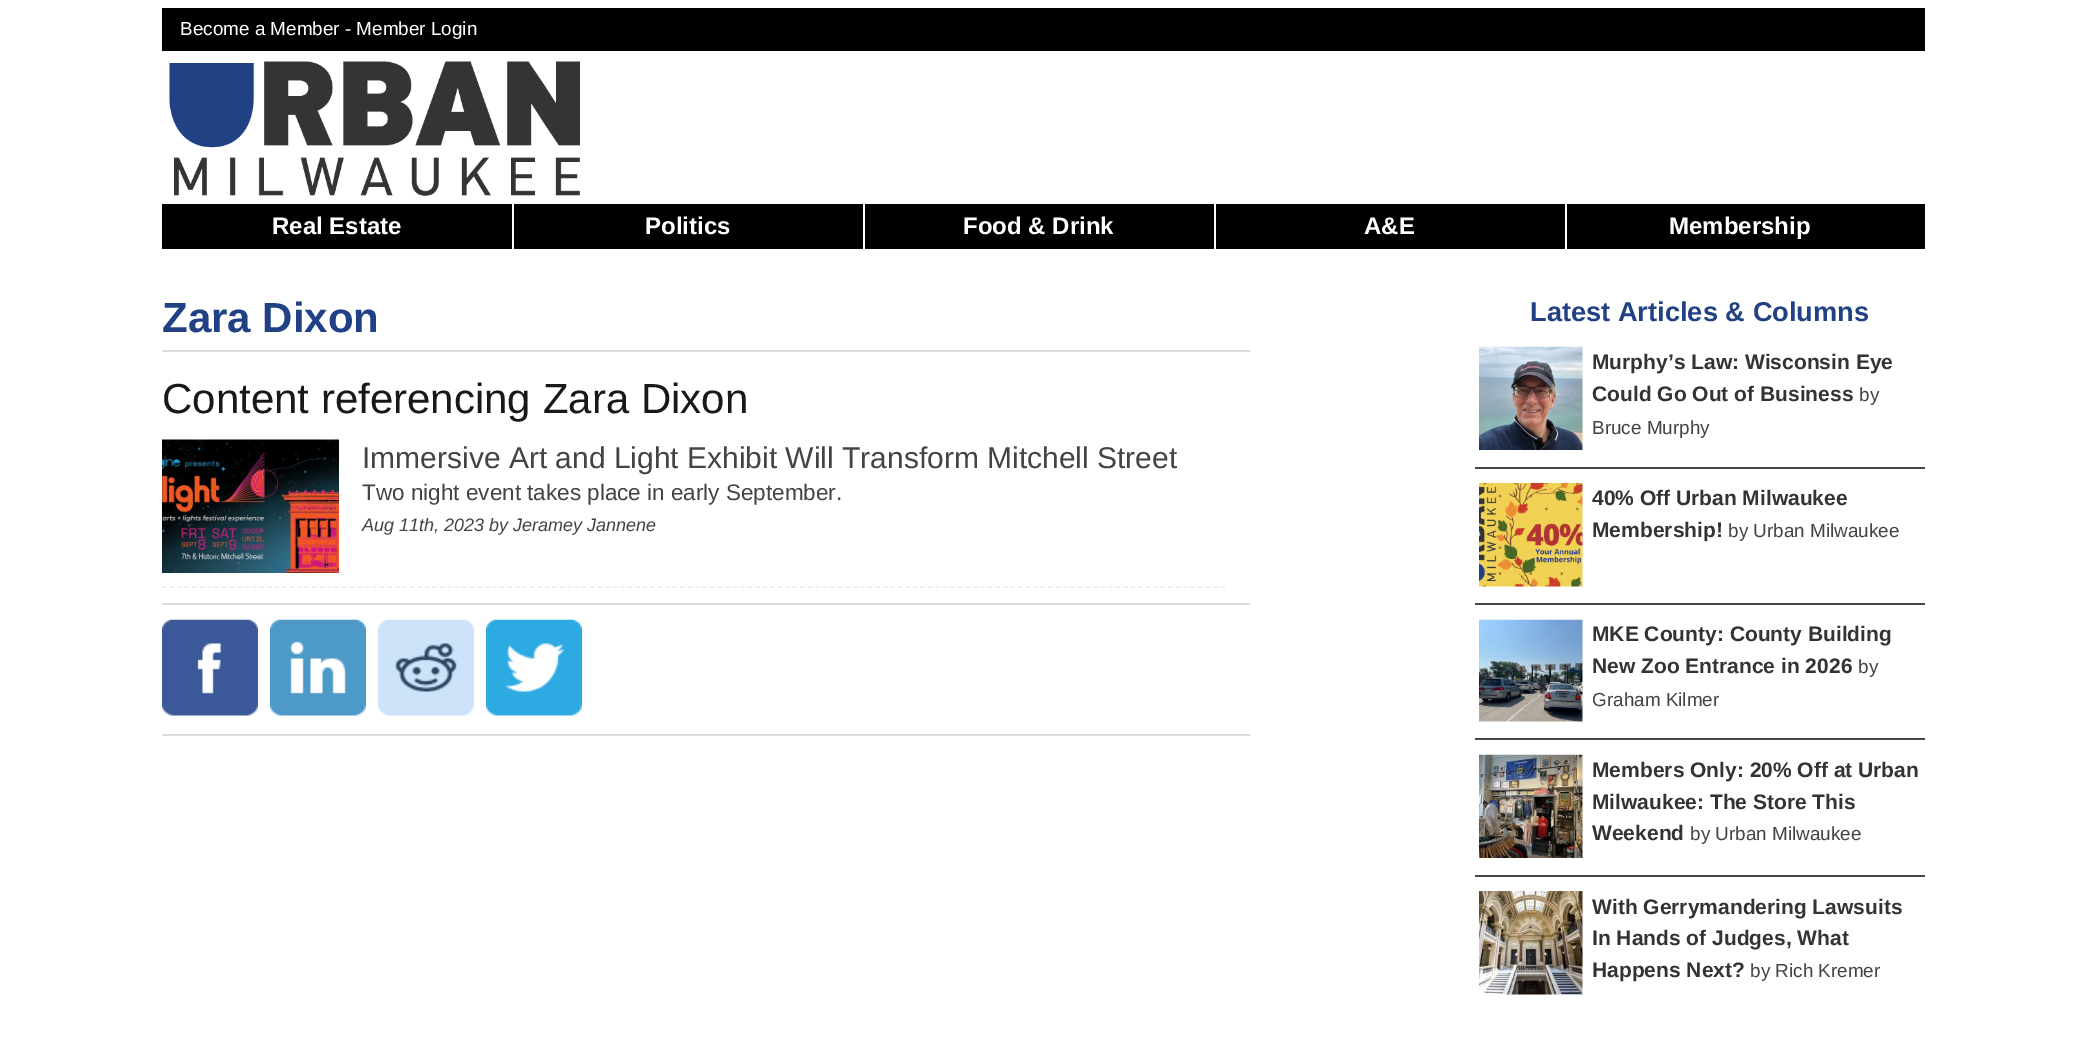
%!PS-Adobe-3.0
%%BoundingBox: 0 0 2086 1049
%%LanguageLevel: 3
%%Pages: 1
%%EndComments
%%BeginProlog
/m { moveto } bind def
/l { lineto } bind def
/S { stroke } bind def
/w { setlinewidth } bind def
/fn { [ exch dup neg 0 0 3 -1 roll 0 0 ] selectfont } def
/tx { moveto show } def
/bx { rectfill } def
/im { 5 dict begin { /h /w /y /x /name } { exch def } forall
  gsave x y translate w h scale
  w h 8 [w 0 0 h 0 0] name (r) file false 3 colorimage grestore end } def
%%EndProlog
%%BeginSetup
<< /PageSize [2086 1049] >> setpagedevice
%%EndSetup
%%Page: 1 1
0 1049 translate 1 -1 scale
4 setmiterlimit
1 setgray
0 0 2086 1049 bx
0 setgray
162 8 1763 43 bx
/LiberationSans-Regular 18.9 fn
1 setgray
(Become a Member - Member Login) 180 35 tx
(image0.raw) 169 61 411 135 im
0 setgray
162 204 1763 45 bx
1 setgray
512 204 2 53 bx
/LiberationSans-Bold 24 fn
(Real Estate) 272 234 tx
863 204 2 53 bx
(Politics) 645 234 tx
1214 204 2 53 bx
(Food & Drink) 963 234 tx
1565 204 2 53 bx
(A&E) 1364 234 tx
(Membership) 1669 234 tx
0.859 setgray
162 350 1088 2 bx
/LiberationSans-Bold 42 fn
0.129 0.255 0.522 setrgbcolor
(Zara Dixon) 162 332 tx
/LiberationSans-Regular 42 fn
0.094 setgray
(Content referencing Zara Dixon) 162 413 tx
0.933 setgray
1.5 w
[4.5 3.01] 0 setdash
162 587 m 1227 587 l S
(image1.raw) 162 439 177 134 im
/LiberationSans-Regular 30 fn
0.267 setgray
(Immersive Art and Light Exhibit Will Transform Mitchell Street) 362 468 tx
/LiberationSans-Regular 22.5 fn
(Two night event takes place in early September.) 362 500 tx
/LiberationSans-Italic 18 fn
(Aug 11th, 2023 by Jeramey Jannene) 362 531 tx
0.859 setgray
162 603 1088 2 bx
162 734 1088 2 bx
(image2.raw) 162 619 96 97 im
(image3.raw) 270 619 96 97 im
(image4.raw) 378 619 96 97 im
(image5.raw) 486 619 96 97 im
/LiberationSans-Bold 27.25 fn
0.129 0.255 0.522 setrgbcolor
(Latest Articles & Columns) 1530 321 tx
0.275 setgray
1475 467 450 2 bx
(image6.raw) 1479 346 104 104 im
/LiberationSans-Bold 21 fn
0.2 setgray
(Murphy’s Law: Wisconsin Eye) 1592 369 tx
(Could Go Out of Business) 1592 401 tx
/LiberationSans-Regular 18.9 fn
0.267 setgray
(by) 1859 401 tx
(Bruce Murphy) 1592 434 tx
0.275 setgray
1475 603 450 2 bx
(image7.raw) 1479 483 104 104 im
/LiberationSans-Bold 21 fn
0.2 setgray
(40% Off Urban Milwaukee) 1592 505 tx
(Membership!) 1592 537 tx
/LiberationSans-Regular 18.9 fn
0.267 setgray
(by Urban Milwaukee) 1728 537 tx
0.275 setgray
1475 738 450 2 bx
(image8.raw) 1479 619 104 103 im
/LiberationSans-Bold 21 fn
0.2 setgray
(MKE County: County Building) 1592 641 tx
(New Zoo Entrance in 2026) 1592 673 tx
/LiberationSans-Regular 18.9 fn
0.267 setgray
(by) 1858 673 tx
(Graham Kilmer) 1592 706 tx
0.275 setgray
1475 875 450 2 bx
(image9.raw) 1479 754 104 104 im
/LiberationSans-Bold 21 fn
0.2 setgray
(Members Only: 20% Off at Urban) 1592 777 tx
(Milwaukee: The Store This) 1592 809 tx
(Weekend) 1592 840 tx
/LiberationSans-Regular 18.9 fn
0.267 setgray
(by Urban Milwaukee) 1690 840 tx
(image10.raw) 1479 891 104 104 im
/LiberationSans-Bold 21 fn
0.2 setgray
(With Gerrymandering Lawsuits) 1592 914 tx
(In Hands of Judges, What) 1592 945 tx
(Happens Next?) 1592 977 tx
/LiberationSans-Regular 18.9 fn
0.267 setgray
(by Rich Kremer) 1750 977 tx
showpage
%%EOF
